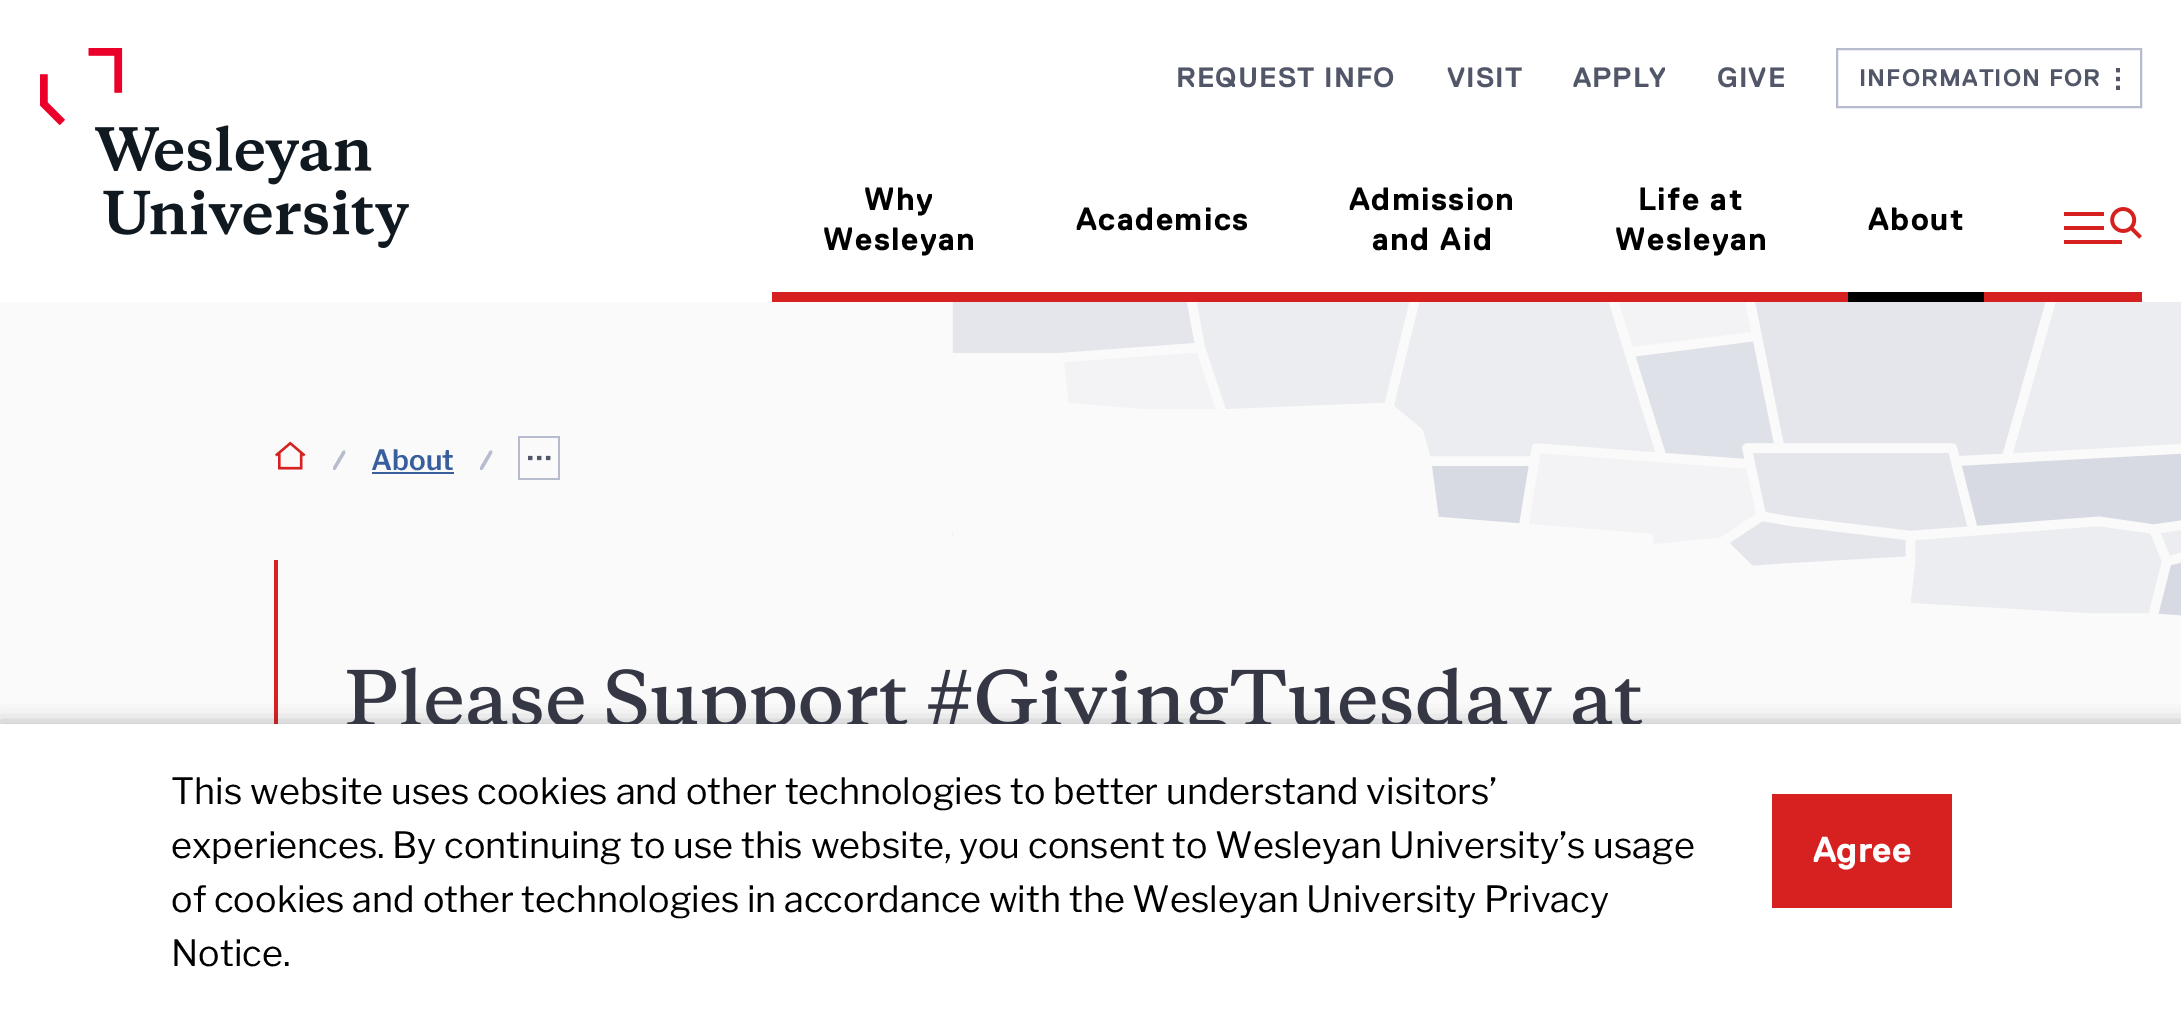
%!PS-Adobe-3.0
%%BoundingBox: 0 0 2181 1020
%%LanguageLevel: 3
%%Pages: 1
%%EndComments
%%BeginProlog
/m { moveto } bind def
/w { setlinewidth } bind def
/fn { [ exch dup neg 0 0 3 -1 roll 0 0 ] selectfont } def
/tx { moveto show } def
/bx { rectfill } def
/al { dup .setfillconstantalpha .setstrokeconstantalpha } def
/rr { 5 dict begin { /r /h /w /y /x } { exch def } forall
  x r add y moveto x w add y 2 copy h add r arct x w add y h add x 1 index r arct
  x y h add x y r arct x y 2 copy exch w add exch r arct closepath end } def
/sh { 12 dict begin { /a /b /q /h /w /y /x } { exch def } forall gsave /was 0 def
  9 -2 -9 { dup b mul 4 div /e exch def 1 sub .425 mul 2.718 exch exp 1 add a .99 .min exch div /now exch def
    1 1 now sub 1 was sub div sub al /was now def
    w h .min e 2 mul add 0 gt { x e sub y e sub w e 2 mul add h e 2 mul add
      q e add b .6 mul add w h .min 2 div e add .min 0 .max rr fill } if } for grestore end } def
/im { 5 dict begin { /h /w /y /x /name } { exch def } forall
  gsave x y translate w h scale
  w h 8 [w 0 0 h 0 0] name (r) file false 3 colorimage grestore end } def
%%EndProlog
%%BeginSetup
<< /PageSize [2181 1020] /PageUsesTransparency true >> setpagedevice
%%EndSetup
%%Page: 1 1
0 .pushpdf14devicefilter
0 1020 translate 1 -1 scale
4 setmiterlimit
1 setgray
0 0 2181 1020 bx
(image0.raw) 40 48 369 200 im
/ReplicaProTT-Bold 28 fn
0.318 0.337 0.408 setrgbcolor
1176 87 m 1.1 0 (REQUEST INFO) ashow
1447 87 m 1.1 0 (VISIT) ashow
1573 87 m 1.1 0 (APPLY) ashow
1717 87 m 1.1 0 (GIVE) ashow
0.714 0.733 0.804 setrgbcolor
2 w
1837 49 304 58 rectstroke
/ReplicaProTT-Bold 24 fn
0.318 0.337 0.408 setrgbcolor
1859 86 m 1.1 0 (INFORMATION FOR) ashow
(image1.raw) 2116 68 4 22 im
0.843 0.129 0.129 setrgbcolor
772 292 1370 10 bx
/ReplicaProTT-Bold 32 fn
0 setgray
864 210 m 1.5 0 (Why) ashow
823 250 m 1.5 0 (Wesleyan) ashow
1076 230 m 1.5 0 (Academics) ashow
1349 210 m 1.5 0 (Admission) ashow
1372 250 m 1.5 0 (and Aid) ashow
1638 210 m 1.5 0 (Life at) ashow
1615 250 m 1.5 0 (Wesleyan) ashow
1868 230 m 1.5 0 (About) ashow
1848 292 136 10 bx
(image2.raw) 2064 207 78 37 im
0.98 setgray
0 302 2181 422 bx
(image3.raw) 275 441 31 29 im
/ReplicaProTT-Bold 28 fn
0.714 0.733 0.804 setrgbcolor
(/) 332 470 tx
/LibreFranklin-SemiBold 28 fn
0.22 0.369 0.616 setrgbcolor
(About) 371 470 tx
372 472 82 2 bx
/ReplicaProTT-Bold 28 fn
0.714 0.733 0.804 setrgbcolor
(/) 479 470 tx
(image4.raw) 518 436 42 44 im
0.843 0.129 0.129 setrgbcolor
274 560 4 164 bx
(image5.raw) 347 667 1296 57 im
(image6.raw) 952 302 1229 314 im
0.208 0.22 0.267 setrgbcolor
0 726 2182 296 0 10 0.5 sh
1 setgray
0 724 2181 296 bx
/LibreFranklin-Regular 36 fn
0 setgray
(This website uses cookies and other technologies to better understand visitors’) 171 804 tx
(experiences. By continuing to use this website, you consent to Wesleyan University’s usage) 171 858 tx
(of cookies and other technologies in accordance with the Wesleyan University Privacy) 171 912 tx
(Notice.) 171 966 tx
0.843 0.129 0.129 setrgbcolor
1772 794 180 114 bx
/ReplicaProTT-Bold 36 fn
1 setgray
(Agree) 1813 862 tx
.poppdf14devicefilter showpage
%%EOF
